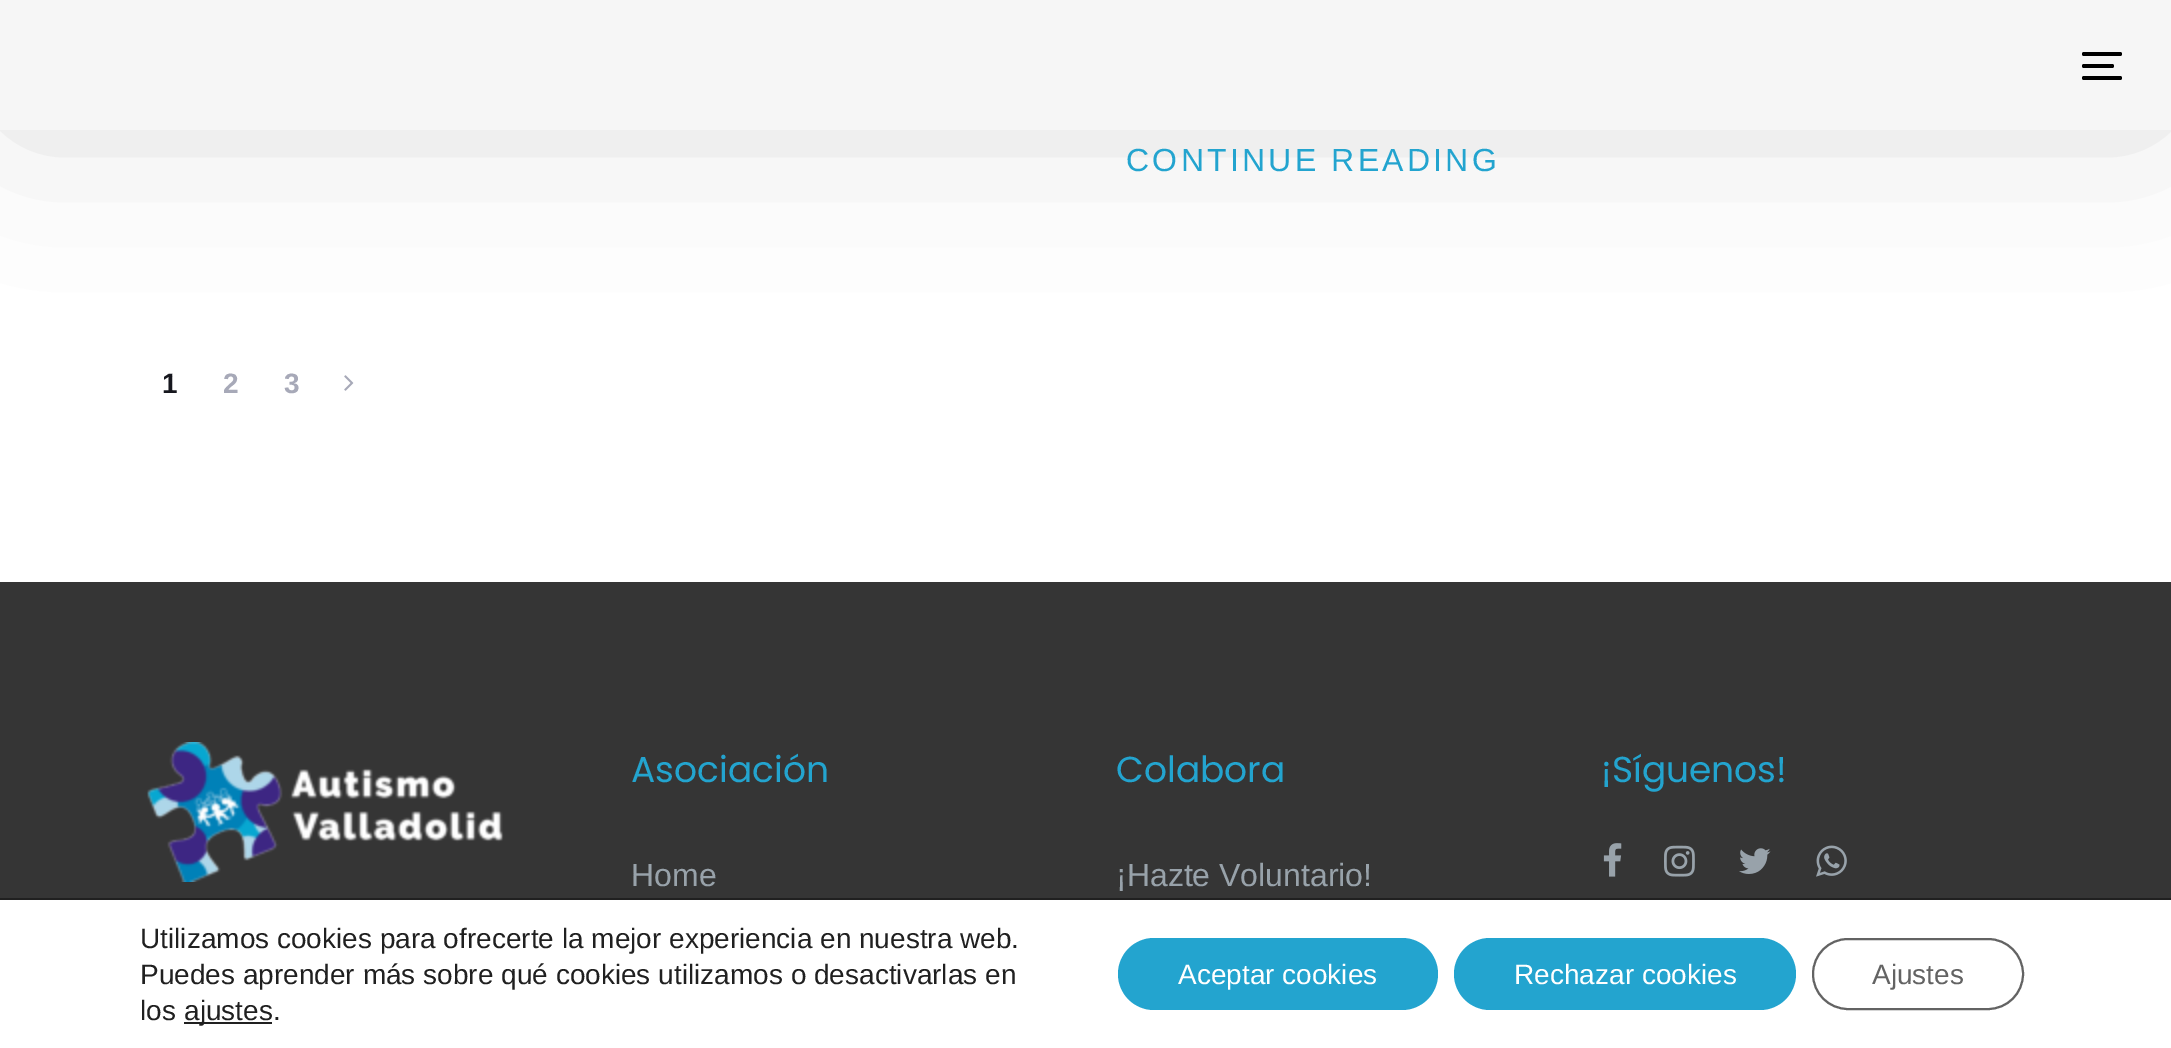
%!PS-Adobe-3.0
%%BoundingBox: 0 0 2171 1048
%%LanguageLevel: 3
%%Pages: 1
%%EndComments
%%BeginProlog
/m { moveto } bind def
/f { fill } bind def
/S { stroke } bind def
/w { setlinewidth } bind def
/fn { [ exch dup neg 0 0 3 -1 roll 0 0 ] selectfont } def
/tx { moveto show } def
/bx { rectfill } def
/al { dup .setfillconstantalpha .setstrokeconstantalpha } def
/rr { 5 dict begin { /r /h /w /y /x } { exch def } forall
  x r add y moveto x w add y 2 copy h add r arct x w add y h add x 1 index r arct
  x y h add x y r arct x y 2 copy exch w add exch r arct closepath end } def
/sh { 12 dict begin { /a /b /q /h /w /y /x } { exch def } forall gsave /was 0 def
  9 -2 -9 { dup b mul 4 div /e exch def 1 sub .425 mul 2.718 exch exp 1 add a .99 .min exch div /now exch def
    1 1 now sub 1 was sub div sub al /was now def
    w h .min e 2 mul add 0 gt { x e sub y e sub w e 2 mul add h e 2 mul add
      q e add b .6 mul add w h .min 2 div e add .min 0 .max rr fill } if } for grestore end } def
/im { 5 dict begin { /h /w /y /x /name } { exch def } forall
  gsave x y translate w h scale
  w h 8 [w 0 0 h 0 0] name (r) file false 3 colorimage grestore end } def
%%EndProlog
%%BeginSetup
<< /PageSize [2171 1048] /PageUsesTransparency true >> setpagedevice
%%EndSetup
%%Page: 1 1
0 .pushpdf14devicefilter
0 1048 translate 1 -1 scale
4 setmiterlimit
1 setgray
0 0 2171 1048 bx
0 setgray
40 40 2092 50 0 90 0.2 sh
0.965 setgray
0 0 2171 130 bx
0 setgray
2082 52 40 4 2 rr f
2082 64 32 4 2 rr f
2082 76 40 4 2 rr f
/LiberationSans-Regular 32 fn
0.137 0.643 0.812 setrgbcolor
1126 171 m 3.25 0 (CONTINUE READING) ashow
/LiberationSans-Bold 28 fn
0.086 0.09 0.118 setrgbcolor
162 393 m 3 0 (1) ashow
0.655 0.663 0.722 setrgbcolor
223 393 m 3 0 (2) ashow
284 393 m 3 0 (3) ashow
(image0.raw) 344 375 10 16 im
0.208 setgray
0 582 2171 316 bx
(image1.raw) 147 742 357 140 im
/Poppins-Regular 36 fn
0.137 0.643 0.812 setrgbcolor
(Asociación) 631 782 tx
/LiberationSans-Regular 32 fn
0.596 0.635 0.667 setrgbcolor
(Home) 631 886 tx
/Poppins-Regular 36 fn
0.137 0.643 0.812 setrgbcolor
(Colabora) 1116 782 tx
/LiberationSans-Regular 32 fn
0.596 0.635 0.667 setrgbcolor
(¡Hazte Voluntario!) 1116 886 tx
/Poppins-Regular 36 fn
0.137 0.643 0.812 setrgbcolor
(¡Síguenos!) 1601 782 tx
(image2.raw) 1603 843 19 34 im
(image3.raw) 1664 845 31 32 im
(image4.raw) 1739 848 32 26 im
(image5.raw) 1816 845 31 32 im
0.125 setgray
0 898 2171 2 bx
/LiberationSans-Regular 28 fn
(Utilizamos cookies para ofrecerte la mejor experiencia en nuestra web.) 140 948 tx
(Puedes aprender más sobre qué cookies utilizamos o desactivarlas en) 140 984 tx
(los) 140 1020 tx
184 1022 88 2 bx
(ajustes.) 184 1020 tx
0.137 0.643 0.812 setrgbcolor
1118 938 320 72 36 rr f
1 setgray
(Aceptar cookies) 1178 984 tx
0.137 0.643 0.812 setrgbcolor
1454 938 342 72 36 rr f
1 setgray
(Rechazar cookies) 1514 984 tx
0.388 setgray
2 w
1813 939 210 70 35 rr S
(Ajustes) 1872 984 tx
.poppdf14devicefilter showpage
%%EOF
